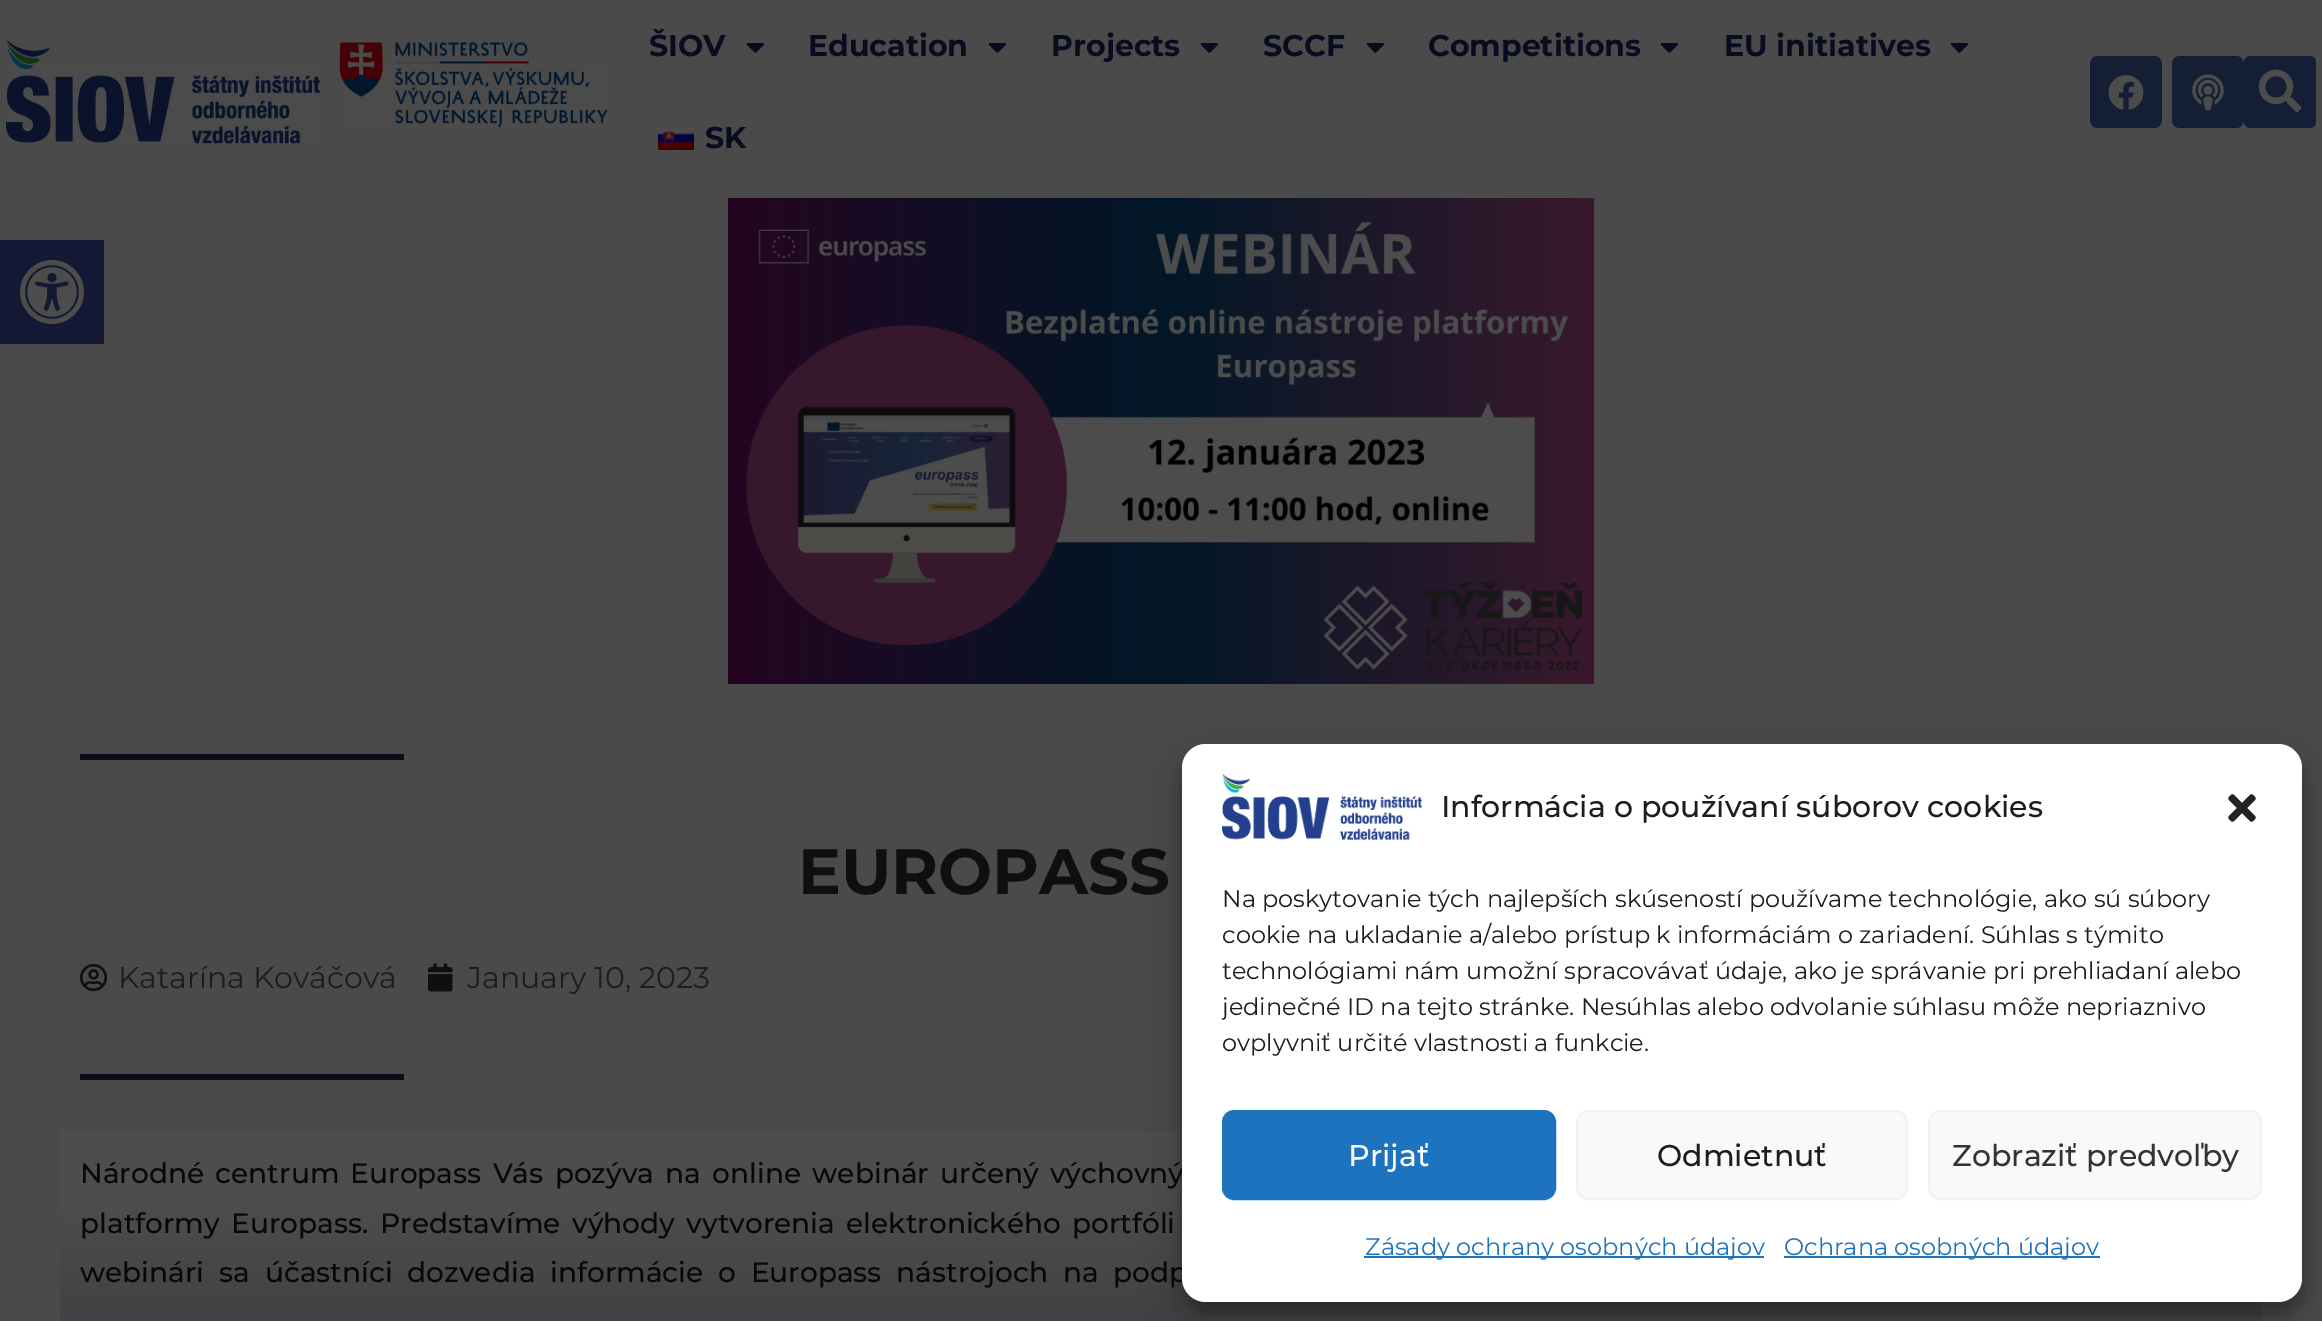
%!PS-Adobe-3.0
%%BoundingBox: 0 0 2322 1321
%%LanguageLevel: 3
%%Pages: 1
%%EndComments
%%BeginProlog
/m { moveto } bind def
/l { lineto } bind def
/h { closepath } bind def
/f { fill } bind def
/S { stroke } bind def
/q { gsave } bind def
/Q { grestore } bind def
/w { setlinewidth } bind def
/fn { [ exch dup neg 0 0 3 -1 roll 0 0 ] selectfont } def
/tx { moveto show } def
/bx { rectfill } def
/al { dup .setfillconstantalpha .setstrokeconstantalpha } def
/rr { 5 dict begin { /r /h /w /y /x } { exch def } forall
  x r add y moveto x w add y 2 copy h add r arct x w add y h add x 1 index r arct
  x y h add x y r arct x y 2 copy exch w add exch r arct closepath end } def
/sh { 12 dict begin { /a /b /q /h /w /y /x } { exch def } forall gsave /was 0 def
  9 -2 -9 { dup b mul 4 div /e exch def 1 sub .425 mul 2.718 exch exp 1 add a .99 .min exch div /now exch def
    1 1 now sub 1 was sub div sub al /was now def
    w h .min e 2 mul add 0 gt { x e sub y e sub w e 2 mul add h e 2 mul add
      q e add b .6 mul add w h .min 2 div e add .min 0 .max rr fill } if } for grestore end } def
/im { 5 dict begin { /h /w /y /x /name } { exch def } forall
  gsave x y translate w h scale
  w h 8 [w 0 0 h 0 0] name (r) file false 3 colorimage grestore end } def
%%EndProlog
%%BeginSetup
<< /PageSize [2322 1321] /PageUsesTransparency true >> setpagedevice
%%EndSetup
%%Page: 1 1
0 .pushpdf14devicefilter
0 1321 translate 1 -1 scale
4 setmiterlimit
0.29 setgray
0 0 2322 1321 bx
0.075 0.098 0.208 setrgbcolor
0 240 104 104 bx
(image0.raw) 20 260 64 64 im
(image1.raw) 6 40 314 104 im
(image2.raw) 339 42 269 86 im
/Montserrat-Bold 30 fn
0.035 0.043 0.118 setrgbcolor
(ŠIOV) 649 56 tx
(image3.raw) 746 43 19 10 im
(Education) 808 56 tx
(image3.raw) 988 43 19 10 im
(Projects) 1051 56 tx
(image3.raw) 1200 43 19 10 im
(SCCF) 1263 56 tx
(image3.raw) 1366 43 19 10 im
(Competitions) 1428 56 tx
(image3.raw) 1660 43 19 10 im
(EU initiatives) 1724 56 tx
(image3.raw) 1950 43 19 10 im
(image4.raw) 658 126 36 24 im
(SK) 705 148 tx
0.078 0.122 0.208 setrgbcolor
2090 56 72 72 8 rr f
(image5.raw) 2108 75 36 35 im
2172 56 72 72 8 rr f
(image6.raw) 2192 74 32 37 im
2244 56 72 72 6 rr f
(image7.raw) 2258 69 44 43 im
(image8.raw) 728 198 866 486 im
0.035 0.043 0.118 setrgbcolor
80 754 324 6 bx
/Montserrat-Bold 64 fn
0.059 setgray
(EUROPASS) 798 894 tx
(image9.raw) 80 963 28 29 im
/Montserrat-Regular 30 fn
0.114 setgray
(Katarína Kováčová) 118 988 tx
(image10.raw) 428 963 25 29 im
(January 10, 2023) 467 988 tx
0.035 0.043 0.118 setrgbcolor
80 1074 324 6 bx
q 60 1130 m 2262 1130 l 2262 1321 l 60 1321 l h clip newpath
<< /ShadingType 2 /ColorSpace /DeviceRGB /Coords [1161 1130 1161 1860] /Extend [true true] /Function << /FunctionType 3 /Domain [0 1] /Functions [<< /FunctionType 2 /Domain [0 1] /C0 [0.302 0.302 0.302] /C1 [0.302 0.302 0.302] /N 1 >> << /FunctionType 2 /Domain [0 1] /C0 [0.302 0.302 0.302] /C1 [0.188 0.192 0.22] /N 1 >> << /FunctionType 2 /Domain [0 1] /C0 [0.188 0.192 0.22] /C1 [0.188 0.192 0.22] /N 1 >>] /Bounds [0.1 0.5] /Encode [0 1 0 1 0 1] >> >> shfill Q
/Montserrat-Medium 28 fn
0.031 setgray
80 1183 m 3.75 0 32 (Národné centrum Europass Vás pozýva na online webinár určený výchovný) widthshow
80 1233 m 4 0 32 (platformy Europass. Predstavíme výhody vytvorenia elektronického portfóli) widthshow
80 1282 m 7.25 0 32 (webinári sa účastníci dozvedia informácie o Europass nástrojoch na podp) widthshow
0 setgray
1182 756 1120 558 24 6 0.23 sh
1182 764 1120 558 24 20 0.19 sh
1 setgray
1182 744 1120 558 24 rr f
(image11.raw) 1222 774 200 67 im
/Montserrat-Medium 30 fn
0.114 setgray
(Informácia o používaní súborov cookies) 1441 817 tx
(image12.raw) 2228 794 28 28 im
/Montserrat-Regular 24 fn
(Na poskytovanie tých najlepších skúseností používame technológie, ako sú súbory) 1222 907 tx
(cookie na ukladanie a/alebo prístup k informáciám o zariadení. Súhlas s týmito) 1222 943 tx
(technológiami nám umožní spracovávať údaje, ako je správanie pri prehliadaní alebo) 1222 979 tx
q
1222 880 1040 190 rectclip
(jedinečné ID na tejto stránke. Nesúhlas alebo odvolanie súhlasu môže nepriaznivo) 1222 1015 tx
Q
(ovplyvniť určité vlastnosti a funkcie.) 1222 1051 tx
0.118 0.451 0.745 setrgbcolor
1223 1111 332 88 11 rr q f Q
2 w
S
/Montserrat-Medium 30 fn
1 setgray
(Prijať) 1348 1166 tx
0.976 setgray
1577 1111 330 88 11 rr q f Q
0.949 setgray
S
0.114 setgray
(Odmietnuť) 1657 1166 tx
0.976 setgray
1929 1111 332 88 11 rr q f Q
0.949 setgray
S
0.2 setgray
(Zobraziť predvoľby) 1952 1166 tx
0.118 0.451 0.745 setrgbcolor
1364 1256 400 2 bx
/Montserrat-Regular 24 fn
(Zásady ochrany osobných údajov) 1365 1255 tx
1784 1256 316 2 bx
(Ochrana osobných údajov) 1784 1255 tx
.poppdf14devicefilter showpage
%%EOF
